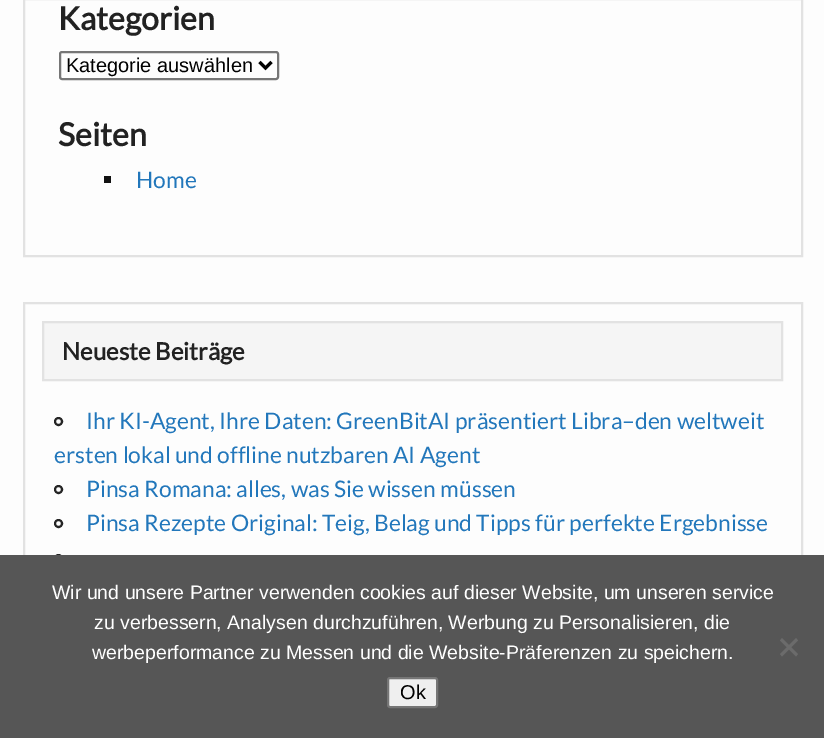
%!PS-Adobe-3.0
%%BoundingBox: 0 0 824 738
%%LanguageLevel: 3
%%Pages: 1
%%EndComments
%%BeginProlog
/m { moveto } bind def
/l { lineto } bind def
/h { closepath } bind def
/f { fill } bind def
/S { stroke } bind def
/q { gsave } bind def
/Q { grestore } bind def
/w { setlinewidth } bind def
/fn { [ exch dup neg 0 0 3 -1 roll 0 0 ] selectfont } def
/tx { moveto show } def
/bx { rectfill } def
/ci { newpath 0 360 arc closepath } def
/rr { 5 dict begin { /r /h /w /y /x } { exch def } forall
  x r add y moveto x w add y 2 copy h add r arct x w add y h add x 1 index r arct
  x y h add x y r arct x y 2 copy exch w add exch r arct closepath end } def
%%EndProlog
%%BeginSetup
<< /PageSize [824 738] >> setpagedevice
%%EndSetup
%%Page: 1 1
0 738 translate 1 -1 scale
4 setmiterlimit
0.992 setgray
0 0 824 738 bx
0.886 setgray
2 w
24 -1 778 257 rectstroke
/Lato-Bold 32 fn
0.133 setgray
(Kategorien) 58 30 tx
0.463 setgray
60 52 218 27 2 rr S
0 setgray
3 w
259.5 62 m 265.5 68 l 271.5 62 l S
/LiberationSans-Regular 20 fn
(Kategorie auswählen) 66 72 tx
/Lato-Bold 32 fn
0.133 setgray
(Seiten) 58 146 tx
0.067 setgray
104 176 7 7 bx
/Lato-Regular 22.8 fn
0.133 0.467 0.733 setrgbcolor
(Home) 136 188 tx
0.886 setgray
2 w
24 303 778 392 rectstroke
0.961 setgray
43 322 m 782 322 l 782 380 l 43 380 l h q f Q
0.886 setgray
S
/Lato-Bold 24 fn
0.133 setgray
(Neueste Beiträge) 62 360 tx
0.145 setgray
58.5 421.5 3.5 ci S
/Lato-Regular 22.8 fn
0.133 0.467 0.733 setrgbcolor
(Ihr KI-Agent, Ihre Daten: GreenBitAI präsentiert Libra–den weltweit) 86 429 tx
(ersten lokal und offline nutzbaren AI Agent) 54 463 tx
0.145 setgray
58.5 489.5 3.5 ci S
0.133 0.467 0.733 setrgbcolor
(Pinsa Romana: alles, was Sie wissen müssen) 86 497 tx
0.145 setgray
58.5 523.5 3.5 ci S
0.133 0.467 0.733 setrgbcolor
(Pinsa Rezepte Original: Teig, Belag und Tipps für perfekte Ergebnisse) 86 531 tx
0.145 setgray
58.5 558.5 3.5 ci S
0.337 setgray
0 555 824 183 bx
/LiberationSans-Regular 19.5 fn
1 setgray
(Wir und unsere Partner verwenden cookies auf dieser Website, um unseren service) 52 599 tx
(zu verbessern, Analysen durchzuführen, Werbung zu Personalisieren, die) 94 629 tx
(werbeperformance zu Messen und die Website-Präferenzen zu speichern.) 92 659 tx
0.42 setgray
796 638 m 798 640.5 l 782 656.5 l 780 654 l h f
780 640.5 m 782 638 l 798 654 l 796 656.5 l h f
0.937 setgray
388 678 49 29 2 rr q f Q
0.463 setgray
S
/LiberationSans-Regular 20 fn
0 setgray
(Ok) 400 699 tx
showpage
%%EOF
